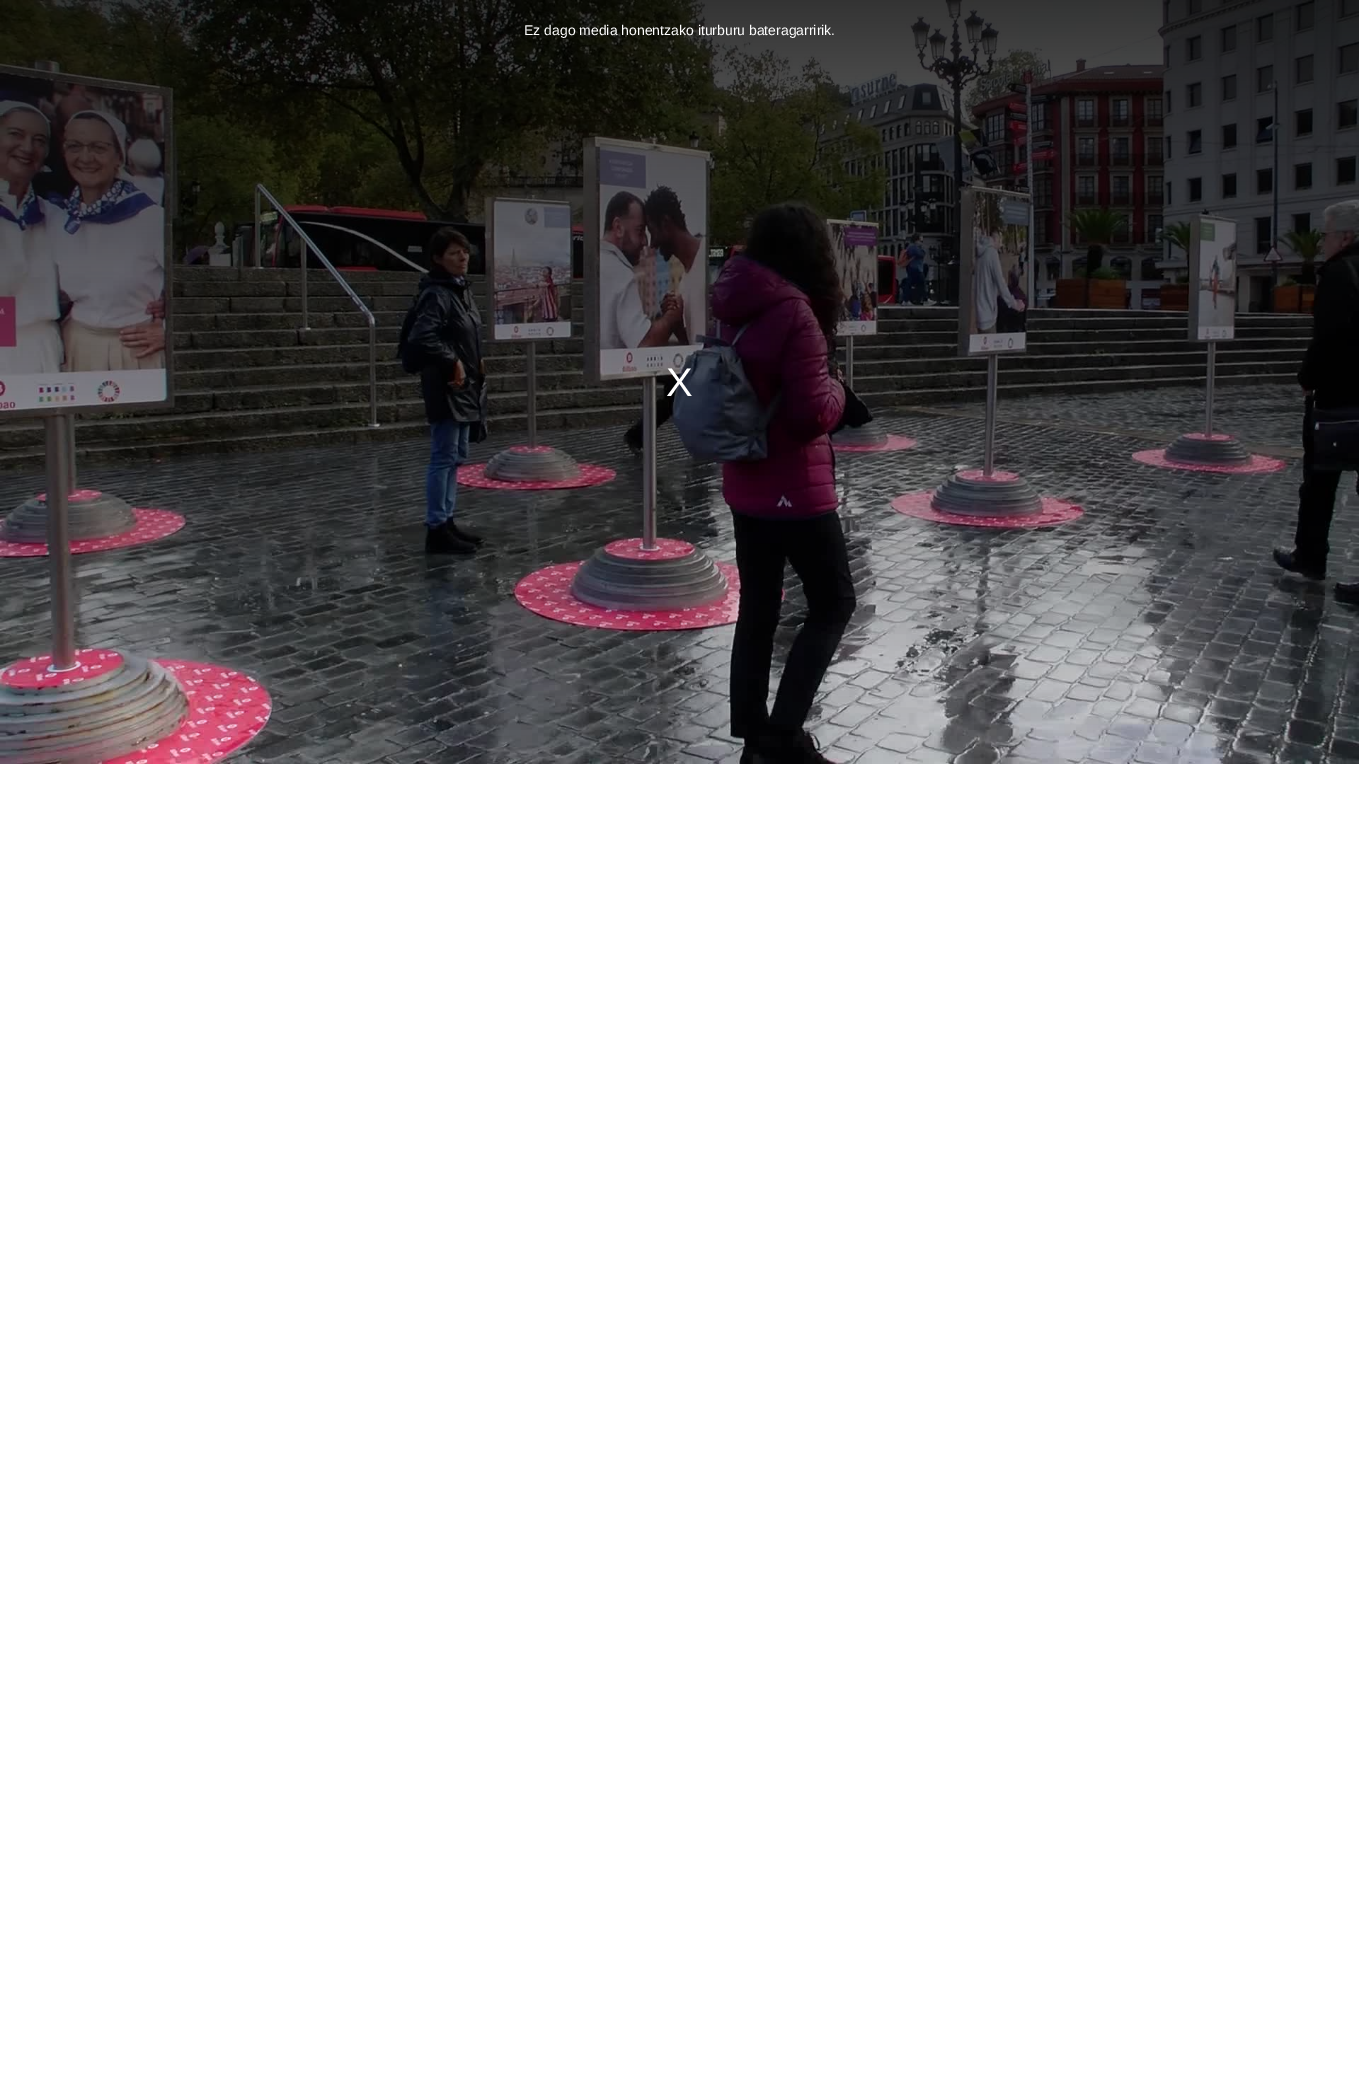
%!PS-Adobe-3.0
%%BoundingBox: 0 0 1359 2094
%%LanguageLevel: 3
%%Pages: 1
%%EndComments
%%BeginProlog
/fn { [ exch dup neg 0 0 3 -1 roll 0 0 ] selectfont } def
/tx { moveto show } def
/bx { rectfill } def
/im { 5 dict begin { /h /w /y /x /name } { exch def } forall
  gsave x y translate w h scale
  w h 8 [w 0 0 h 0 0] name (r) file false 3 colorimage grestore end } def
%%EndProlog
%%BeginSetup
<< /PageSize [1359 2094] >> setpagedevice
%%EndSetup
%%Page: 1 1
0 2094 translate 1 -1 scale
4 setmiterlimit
1 setgray
0 0 1359 2094 bx
(image0.raw) 0 0 1359 764 im
/LiberationSans-Regular 14 fn
(Ez dago media honentzako iturburu bateragarririk.) 524 35 tx
/LiberationSans-Regular 40 fn
(X) 666 396 tx
showpage
%%EOF
